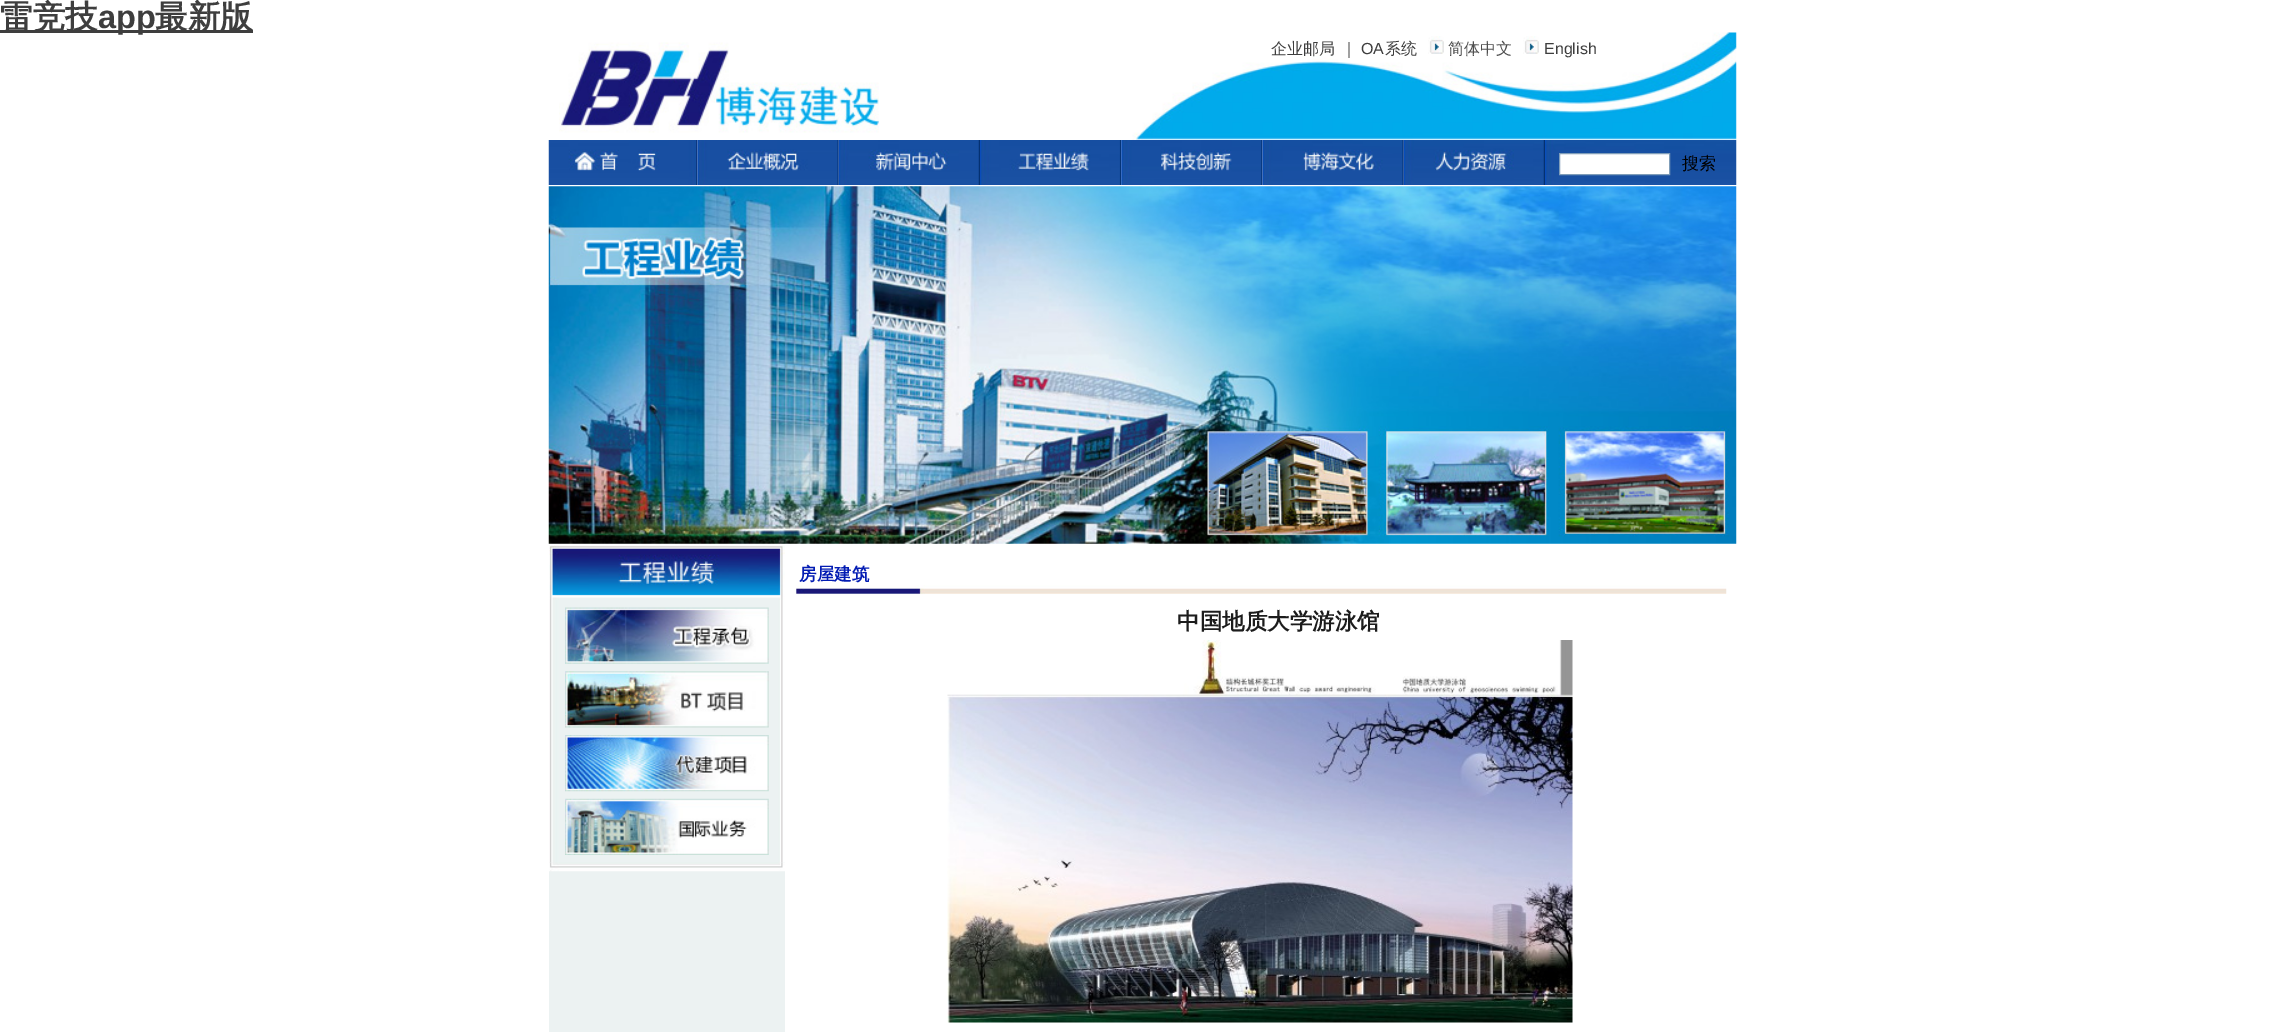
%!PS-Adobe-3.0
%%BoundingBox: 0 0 2284 1032
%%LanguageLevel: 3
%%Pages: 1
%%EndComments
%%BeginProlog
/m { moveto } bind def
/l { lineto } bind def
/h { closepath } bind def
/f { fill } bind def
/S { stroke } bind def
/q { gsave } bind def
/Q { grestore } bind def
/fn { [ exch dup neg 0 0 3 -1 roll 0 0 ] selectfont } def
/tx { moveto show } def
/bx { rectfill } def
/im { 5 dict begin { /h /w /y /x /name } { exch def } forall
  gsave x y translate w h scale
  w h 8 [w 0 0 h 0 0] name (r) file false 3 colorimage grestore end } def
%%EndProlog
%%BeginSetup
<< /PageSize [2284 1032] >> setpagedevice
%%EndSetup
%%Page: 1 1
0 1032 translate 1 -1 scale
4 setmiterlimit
1 setgray
0 0 2284 1032 bx
0.243 setgray
0 30 253 3 bx
/WenQuanYiZenHei-Bold 32.5 fn
(雷竞技) 0 28 tx
/LiberationSans-Bold 32.5 fn
(app) 98 28 tx
/WenQuanYiZenHei-Bold 32.5 fn
(最新版) 155 28 tx
(image0.raw) 559 42 320 91 im
(image1.raw) 1132 32 605 108 im
/WenQuanYiZenHei-Medium 16 fn
(企业邮局) 1271 54 tx
0.306 setgray
(｜) 1341 54 tx
/LiberationSans-Regular 16 fn
0.243 setgray
(OA) 1361 54 tx
/WenQuanYiZenHei-Medium 16 fn
(系统) 1385 54 tx
(image2.raw) 1428 36 16 18 im
0.306 setgray
(简体中文) 1448 54 tx
(image2.raw) 1523 36 16 18 im
/LiberationSans-Regular 16 fn
0.243 setgray
(English) 1544 54 tx
(image3.raw) 548 140 150 45 im
(image4.raw) 697 140 142 45 im
(image5.raw) 838 140 142 45 im
(image6.raw) 980 140 142 45 im
(image7.raw) 1121 140 142 45 im
(image8.raw) 1262 140 142 45 im
(image9.raw) 1403 140 142 45 im
(image10.raw) 1545 140 192 45 im
1 setgray
1559.5 153.5 m 1669.5 153.5 l 1669.5 174.5 l 1559.5 174.5 l h q f Q
0.498 0.616 0.725 setrgbcolor
S
/WenQuanYiZenHei-Medium 17 fn
0 setgray
(搜索) 1682 169 tx
(image11.raw) 548 186 1189 358 im
0.925 0.949 0.949 setrgbcolor
549 862 236 170 bx
(image12.raw) 549 545 236 55 im
(image13.raw) 549 600 236 263 im
(image14.raw) 565 607 204 57 im
(image15.raw) 565 671 204 57 im
(image16.raw) 565 735 204 57 im
(image17.raw) 565 798 204 57 im
(image18.raw) 549 862 236 10 im
(image19.raw) 795 585 932 10 im
/WenQuanYiZenHei-Bold 17.5 fn
0.012 0.11 0.702 setrgbcolor
(房屋建筑) 799 580 tx
/WenQuanYiZenHei-Bold 22.5 fn
0.11 setgray
(中国地质大学游泳馆) 1177 629 tx
(image20.raw) 947 640 626 383 im
showpage
%%EOF
